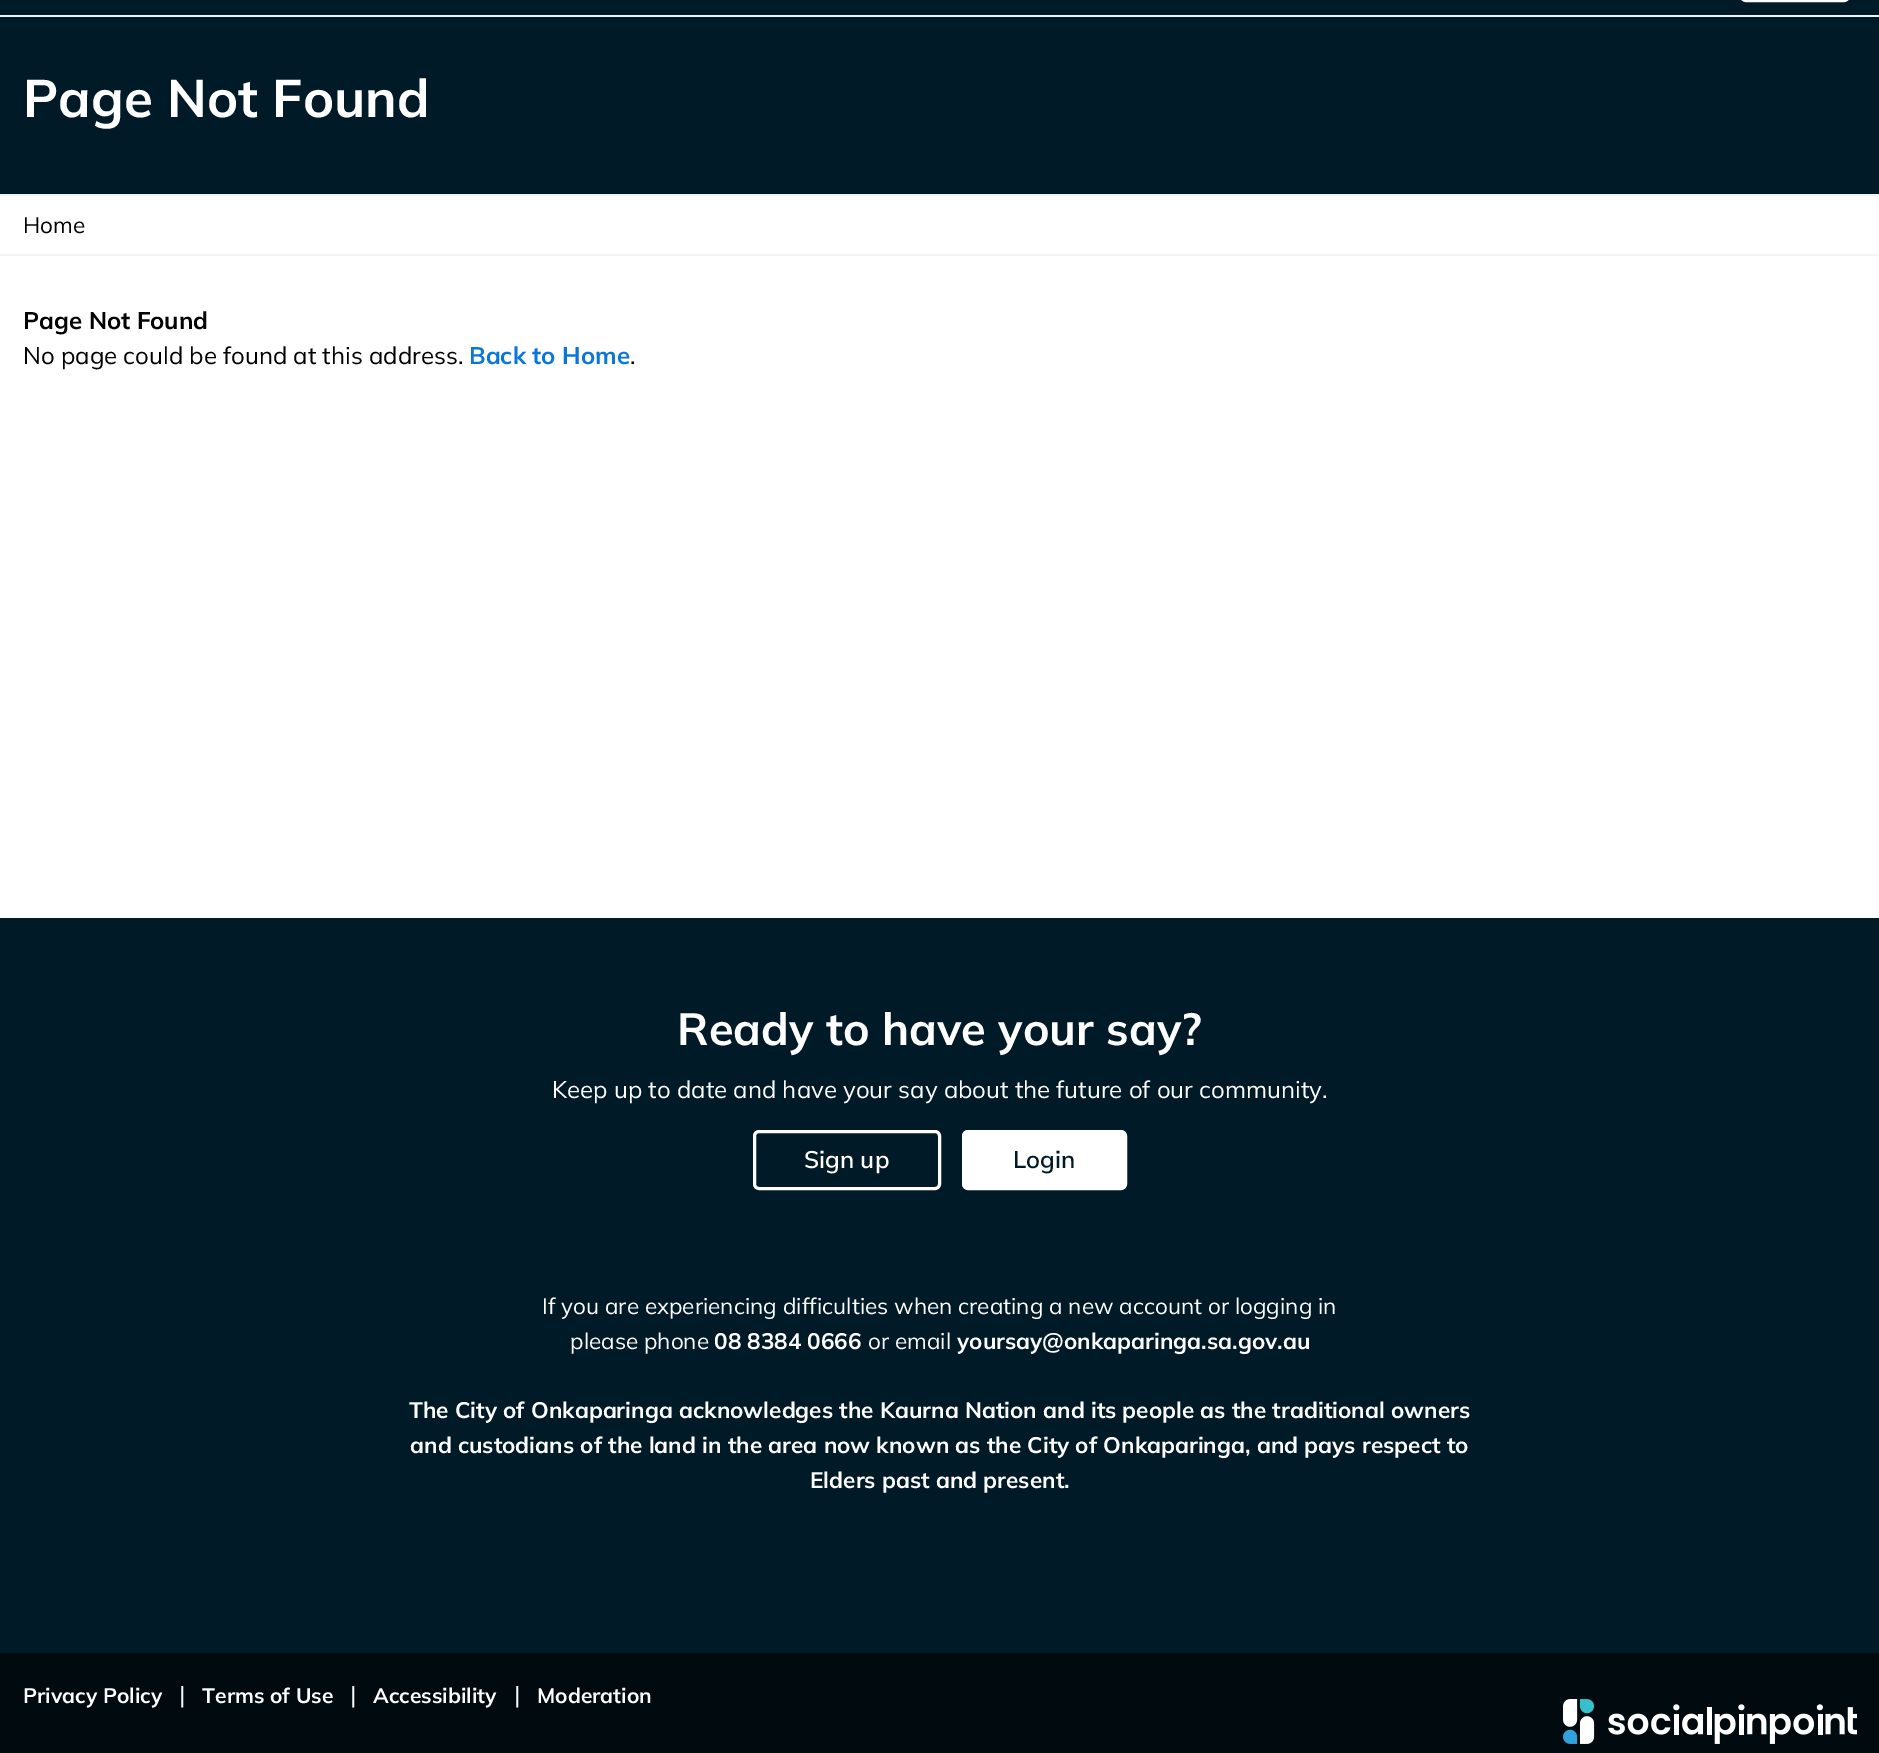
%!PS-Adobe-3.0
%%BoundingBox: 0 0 1879 1753
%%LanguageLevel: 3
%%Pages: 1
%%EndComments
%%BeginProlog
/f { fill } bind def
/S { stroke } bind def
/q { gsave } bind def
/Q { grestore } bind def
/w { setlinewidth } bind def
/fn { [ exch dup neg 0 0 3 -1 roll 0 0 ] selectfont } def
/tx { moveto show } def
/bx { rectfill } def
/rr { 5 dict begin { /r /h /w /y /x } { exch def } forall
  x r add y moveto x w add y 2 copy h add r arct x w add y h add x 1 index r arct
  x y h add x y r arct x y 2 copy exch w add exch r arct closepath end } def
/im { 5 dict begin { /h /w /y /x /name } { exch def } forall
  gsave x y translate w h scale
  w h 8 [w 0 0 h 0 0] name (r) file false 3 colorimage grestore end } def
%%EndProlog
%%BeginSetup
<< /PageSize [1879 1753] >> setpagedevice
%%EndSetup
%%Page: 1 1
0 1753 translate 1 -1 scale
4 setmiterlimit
1 setgray
0 0 1879 1753 bx
0 0.102 0.157 setrgbcolor
0 0 1879 15 bx
0.949 0.953 0.957 setrgbcolor
0 15 1879 2 bx
1 setgray
3 w
1741.5 -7.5 107 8 4.5 rr S
0.949 0.953 0.957 setrgbcolor
0 254 1879 2 bx
0 0.102 0.157 setrgbcolor
0 17 1879 177 bx
0.949 0.953 0.957 setrgbcolor
0 194 1879 2 bx
/Mulish-Bold 52.75 fn
1 setgray
(Page Not Found) 23 117 tx
/Mulish-Regular 22.5 fn
0 setgray
(Home) 23 233 tx
/Mulish-Bold 24 fn
(Page Not Found) 23 329 tx
/Mulish-Regular 24 fn
(No page could be found at this address.) 23 364 tx
/Mulish-Bold 24 fn
0.035 0.463 0.855 setrgbcolor
(Back to Home) 469 364 tx
/Mulish-Regular 24 fn
0 setgray
(.) 630 364 tx
0 0.102 0.157 setrgbcolor
0 918 1879 735 bx
/Mulish-Bold 45 fn
1 setgray
(Ready to have your say?) 677 1045 tx
/Mulish-Regular 24 fn
(Keep up to date and have your say about the future of our community.) 552 1098 tx
754.5 1131.5 185 57 4.5 rr S
/Mulish-SemiBold 24 fn
(Sign up) 804 1168 tx
963.5 1131.5 162 57 4.5 rr q f Q
S
0 0.102 0.157 setrgbcolor
(Login) 1013 1168 tx
/Mulish-Regular 22.5 fn
1 setgray
(If you are experiencing difficulties when creating a new account or logging in) 542 1314 tx
(please phone) 570 1349 tx
/Mulish-Bold 22.5 fn
(08 8384 0666) 714 1349 tx
/Mulish-Regular 22.5 fn
(or email) 868 1349 tx
/Mulish-Bold 22.5 fn
(yoursay@onkaparinga.sa.gov.au) 957 1349 tx
(The City of Onkaparinga acknowledges the Kaurna Nation and its people as the traditional owners) 409 1418 tx
(and custodians of the land in the area now known as the City of Onkaparinga, and pays respect to) 410 1453 tx
(Elders past and present.) 810 1488 tx
0 0.039 0.059 setrgbcolor
0 1653 1879 100 bx
/Mulish-Bold 21 fn
1 setgray
(Privacy Policy) 23 1703 tx
/Mulish-Regular 24 fn
(|) 179 1703 tx
/Mulish-Bold 21 fn
(Terms of Use) 202 1703 tx
/Mulish-Regular 24 fn
(|) 350 1703 tx
/Mulish-Bold 21 fn
(Accessibility) 373 1703 tx
/Mulish-Regular 24 fn
(|) 514 1703 tx
/Mulish-Bold 21 fn
(Moderation) 537 1703 tx
(image0.raw) 1563 1699 294 45 im
showpage
%%EOF
